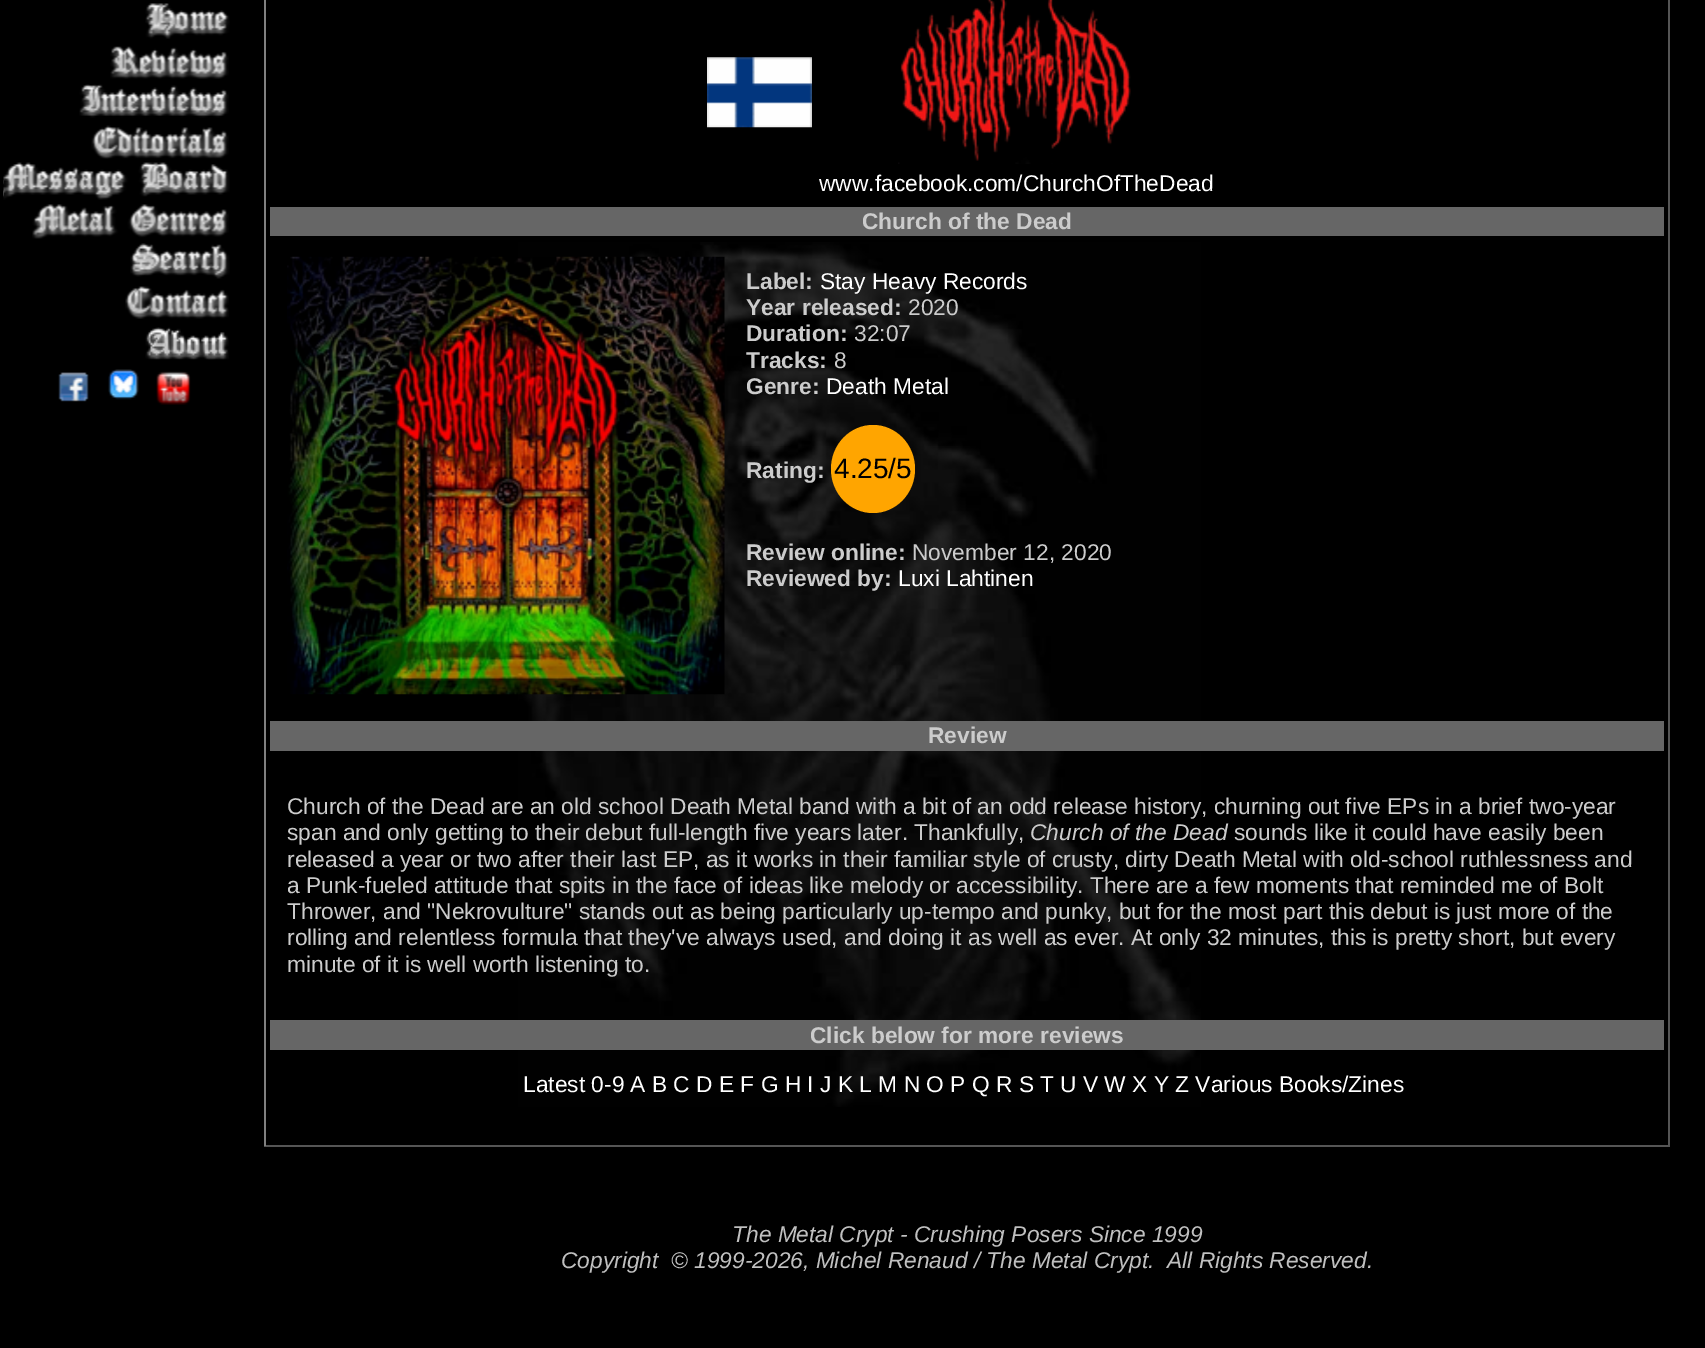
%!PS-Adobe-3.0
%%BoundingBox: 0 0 1705 1348
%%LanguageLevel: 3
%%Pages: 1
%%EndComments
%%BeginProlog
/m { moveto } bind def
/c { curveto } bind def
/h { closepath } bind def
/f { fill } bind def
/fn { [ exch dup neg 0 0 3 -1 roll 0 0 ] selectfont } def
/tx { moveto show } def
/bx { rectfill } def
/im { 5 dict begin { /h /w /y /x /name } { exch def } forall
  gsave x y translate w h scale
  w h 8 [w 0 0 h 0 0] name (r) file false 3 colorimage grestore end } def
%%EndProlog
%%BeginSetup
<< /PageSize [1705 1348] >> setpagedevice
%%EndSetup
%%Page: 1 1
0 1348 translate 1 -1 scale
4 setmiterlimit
0 setgray
0 0 1705 1348 bx
(image0.raw) 518 242 683 865 im
(image1.raw) 146 3 83 1 im
(image2.raw) 145 4 85 35 im
(image3.raw) 110 44 119 35 im
(image4.raw) 79 84 148 1 im
(image5.raw) 79 85 150 33 im
(image6.raw) 91 123 138 36 im
(image7.raw) 3 165 1 34 im
(image8.raw) 3 162 227 38 im
(image9.raw) 32 204 197 35 im
(image10.raw) 130 243 100 36 im
(image11.raw) 125 286 104 33 im
(image12.raw) 145 327 84 33 im
(image13.raw) 58 372 31 30 im
(image14.raw) 108 369 31 31 im
(image15.raw) 156 371 35 34 im
0.333 setgray
1668 0 2 1146 bx
264 1145 1406 2 bx
0.502 setgray
264 0 2 1146 bx
(image16.raw) 707 57 105 71 im
(image17.raw) 898 0 233 164 im
/LiberationSans-Regular 22.75 fn
1 setgray
(www.facebook.com/ChurchOfTheDead) 819 191 tx
0.4 setgray
270 207 1394 29 bx
/LiberationSans-Bold 22.75 fn
0.8 setgray
(Church of the Dead) 862 229 tx
(image18.raw) 287 256 438 439 im
(Label:) 746 289 tx
/LiberationSans-Regular 22.75 fn
1 setgray
(Stay Heavy Records) 820 289 tx
/LiberationSans-Bold 22.75 fn
0.8 setgray
(Year released:) 746 315 tx
/LiberationSans-Regular 22.75 fn
(2020) 908 315 tx
/LiberationSans-Bold 22.75 fn
(Duration:) 746 341 tx
/LiberationSans-Regular 22.75 fn
(32:07) 854 341 tx
/LiberationSans-Bold 22.75 fn
(Tracks:) 746 368 tx
/LiberationSans-Regular 22.75 fn
(8) 834 368 tx
/LiberationSans-Bold 22.75 fn
(Genre:) 746 394 tx
/LiberationSans-Regular 22.75 fn
1 setgray
(Death Metal) 826 394 tx
/LiberationSans-Bold 22.75 fn
0.8 setgray
(Rating:) 746 478 tx
1 0.647 0 setrgbcolor
873 425 m 896 425 915 444.5 915 469 c 915 493.5 896 513 873 513 c 850 513 831 493.5 831 469 c 831 444.5 850 425 873 425 c h f
/LiberationSans-Regular 28 fn
0 setgray
(4.25/5) 834 478 tx
/LiberationSans-Bold 22.75 fn
0.8 setgray
(Review online:) 746 560 tx
/LiberationSans-Regular 22.75 fn
(November 12, 2020) 912 560 tx
/LiberationSans-Bold 22.75 fn
(Reviewed by:) 746 586 tx
/LiberationSans-Regular 22.75 fn
1 setgray
(Luxi Lahtinen) 898 586 tx
0.4 setgray
270 721 1394 30 bx
/LiberationSans-Bold 22.75 fn
0.8 setgray
(Review) 928 743 tx
/LiberationSans-Regular 22.75 fn
(Church of the Dead are an old school Death Metal band with a bit of an odd release history, churning out five EPs in a brief two-year) 287 814 tx
(span and only getting to their debut full-length five years later. Thankfully,) 287 840 tx
/LiberationSans-Italic 22.75 fn
(Church of the Dead) 1030 840 tx
/LiberationSans-Regular 22.75 fn
(sounds like it could have easily been) 1234 840 tx
(released a year or two after their last EP, as it works in their familiar style of crusty, dirty Death Metal with old-school ruthlessness and) 287 867 tx
(a Punk-fueled attitude that spits in the face of ideas like melody or accessibility. There are a few moments that reminded me of Bolt) 287 893 tx
(Thrower, and "Nekrovulture" stands out as being particularly up-tempo and punky, but for the most part this debut is just more of the) 287 919 tx
(rolling and relentless formula that they've always used, and doing it as well as ever. At only 32 minutes, this is pretty short, but every) 287 945 tx
(minute of it is well worth listening to.) 287 972 tx
0.4 setgray
270 1020 1394 30 bx
/LiberationSans-Bold 22.75 fn
0.8 setgray
(Click below for more reviews) 810 1043 tx
/LiberationSans-Regular 22.75 fn
1 setgray
(Latest 0-9 A B C D E F G H I J K L M N O P Q R S T U V W X Y Z Various Books/Zines) 523 1092 tx
/LiberationSans-Italic 22.75 fn
0.753 setgray
(The Metal Crypt - Crushing Posers Since 1999) 732 1242 tx
(Copyright  © 1999-2026, Michel Renaud / The Metal Crypt.  All Rights Reserved.) 561 1268 tx
showpage
%%EOF
